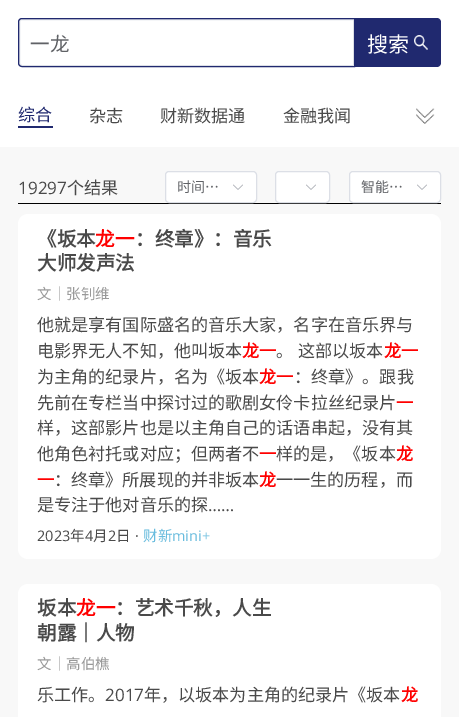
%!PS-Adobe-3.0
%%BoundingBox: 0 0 459 717
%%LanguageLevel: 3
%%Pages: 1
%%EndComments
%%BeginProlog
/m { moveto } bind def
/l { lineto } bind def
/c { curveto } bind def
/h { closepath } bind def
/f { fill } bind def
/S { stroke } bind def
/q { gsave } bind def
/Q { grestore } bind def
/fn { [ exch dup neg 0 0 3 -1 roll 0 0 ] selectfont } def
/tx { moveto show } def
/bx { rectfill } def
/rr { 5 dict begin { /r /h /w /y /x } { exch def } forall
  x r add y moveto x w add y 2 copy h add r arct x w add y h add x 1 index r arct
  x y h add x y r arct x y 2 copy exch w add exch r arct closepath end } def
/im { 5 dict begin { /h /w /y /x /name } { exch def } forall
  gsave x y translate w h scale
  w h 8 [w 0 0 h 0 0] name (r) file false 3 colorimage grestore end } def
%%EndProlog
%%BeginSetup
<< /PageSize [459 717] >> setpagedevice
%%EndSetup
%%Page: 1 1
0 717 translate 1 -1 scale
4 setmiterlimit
0.973 setgray
0 0 459 717 bx
1 setgray
0 0 459 147 bx
0.863 0.875 0.902 setrgbcolor
22 19.5 m 353.5 19.5 l 353.5 65.5 l 22 65.5 l 20.5 65.5 19.5 64.5 19.5 63 c 19.5 22 l 19.5 20.5 20.5 19.5 22 19.5 c h S
0.125 0.161 0.435 setrgbcolor
22 18.5 m 354.5 18.5 l 354.5 66.5 l 22 66.5 l 20 66.5 18.5 65 18.5 63 c 18.5 22 l 18.5 20 20 18.5 22 18.5 c h S
/NotoSansCJKSC-Regular 19.5 fn
0.376 0.384 0.4 setrgbcolor
(一龙) 30 51 tx
0.125 0.161 0.435 setrgbcolor
355 18 m 437 18 l 439 18 441 20 441 22 c 441 63 l 441 65 439 67 437 67 c 355 67 l h f
/NotoSansCJKSC-Regular 21 fn
1 setgray
(搜索) 367 52 tx
(image0.raw) 414 35 14 15 im
0.125 0.161 0.435 setrgbcolor
18 126 35 2 bx
/NotoSansCJKSC-Regular 17.1 fn
(综合) 18 121 tx
0.29 setgray
(杂志) 89 122 tx
(财新数据通) 160 122 tx
(金融我闻) 283 122 tx
(image1.raw) 416 108 19 16 im
0 setgray
18 203 423 1 bx
/OpenSans-Regular 17.1 fn
0.29 setgray
(19297) 18 194 tx
/NotoSansCJKSC-Regular 17.1 fn
(个结果) 67 194 tx
1 setgray
165.5 171.5 91 31 3.5 rr q f Q
0.863 0.875 0.902 setrgbcolor
S
/NotoSansCJKSC-Regular 14 fn
0.376 0.384 0.4 setrgbcolor
(时间…) 177 192 tx
(image2.raw) 233 184 10 6 im
1 setgray
275.5 171.5 54 31 3.5 rr q f Q
0.863 0.875 0.902 setrgbcolor
S
(image2.raw) 306 184 10 6 im
1 setgray
349.5 171.5 91 31 3.5 rr q f Q
0.863 0.875 0.902 setrgbcolor
S
0.376 0.384 0.4 setrgbcolor
(智能…) 361 192 tx
(image2.raw) 417 184 10 6 im
1 setgray
18 214 423 345 10 rr f
/NotoSansCJKSC-Bold 19.5 fn
0.29 setgray
(《坂本) 37 246 tx
1 0 0 setrgbcolor
(龙一) 95 246 tx
0.29 setgray
(：终章》：音乐) 135 246 tx
(大师发声法) 37 270 tx
/NotoSansCJKSC-Regular 14.5 fn
0.6 setgray
(文｜张钊维) 37 299 tx
/NotoSansCJKSC-Regular 17.1 fn
0.29 setgray
(他就是享有国际盛名的音乐大家，名字在音乐界与) 37 331 tx
(电影界无人不知，他叫坂本) 37 357 tx
/NotoSansCJKSC-Bold 17.1 fn
1 0 0 setrgbcolor
(龙一) 242 357 tx
/NotoSansCJKSC-Regular 17.1 fn
0.29 setgray
276 357 m 1 0 32 (。 这部以坂本) widthshow
/NotoSansCJKSC-Bold 17.1 fn
1 0 0 setrgbcolor
(龙一) 384 357 tx
/NotoSansCJKSC-Regular 17.1 fn
0.29 setgray
(为主角的纪录片，名为《坂本) 37 383 tx
/NotoSansCJKSC-Bold 17.1 fn
1 0 0 setrgbcolor
(龙一) 259 383 tx
/NotoSansCJKSC-Regular 17.1 fn
0.29 setgray
(：终章》。跟我) 294 383 tx
(先前在专栏当中探讨过的歌剧女伶卡拉丝纪录片) 37 409 tx
/NotoSansCJKSC-Bold 17.1 fn
1 0 0 setrgbcolor
(一) 396 409 tx
/NotoSansCJKSC-Regular 17.1 fn
0.29 setgray
(样，这部影片也是以主角自己的话语串起，没有其) 37 434 tx
(他角色衬托或对应；但两者不) 37 460 tx
/NotoSansCJKSC-Bold 17.1 fn
1 0 0 setrgbcolor
(一) 259 460 tx
/NotoSansCJKSC-Regular 17.1 fn
0.29 setgray
(样的是，《坂本) 276 460 tx
/NotoSansCJKSC-Bold 17.1 fn
1 0 0 setrgbcolor
(龙) 396 460 tx
(一) 37 486 tx
/NotoSansCJKSC-Regular 17.1 fn
0.29 setgray
(：终章》所展现的并非坂本) 54 486 tx
/NotoSansCJKSC-Bold 17.1 fn
1 0 0 setrgbcolor
(龙) 259 486 tx
/NotoSansCJKSC-Regular 17.1 fn
0.29 setgray
(一一生的历程，而) 276 486 tx
(是专注于他对音乐的探) 37 511 tx
/OpenSans-Regular 17.1 fn
(……) 208 511 tx
/OpenSans-Regular 14.5 fn
(2023) 37 541 tx
/NotoSansCJKSC-Regular 14.5 fn
(年) 70 541 tx
/OpenSans-Regular 14.5 fn
(4) 85 541 tx
/NotoSansCJKSC-Regular 14.5 fn
(月) 93 541 tx
/OpenSans-Regular 14.5 fn
(2) 108 541 tx
/NotoSansCJKSC-Regular 14.5 fn
(日) 116 541 tx
/OpenSans-Regular 14.5 fn
(·) 135 541 tx
/NotoSansCJKSC-Regular 14.5 fn
0.408 0.737 0.871 setrgbcolor
(财新) 143 541 tx
/OpenSans-Regular 14.5 fn
(mini+) 172 541 tx
1 setgray
18 584 423 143 10 rr f
/NotoSansCJKSC-Bold 19.5 fn
0.29 setgray
(坂本) 37 615 tx
1 0 0 setrgbcolor
(龙一) 76 615 tx
0.29 setgray
(：艺术千秋，人生) 115 615 tx
(朝露｜人物) 37 640 tx
/NotoSansCJKSC-Regular 14.5 fn
0.6 setgray
(文｜高伯樵) 37 669 tx
/NotoSansCJKSC-Regular 17.1 fn
0.29 setgray
(乐工作。) 37 701 tx
/OpenSans-Regular 17.1 fn
(2017) 105 701 tx
/NotoSansCJKSC-Regular 17.1 fn
(年，以坂本为主角的纪录片《坂本) 144 701 tx
/NotoSansCJKSC-Bold 17.1 fn
1 0 0 setrgbcolor
(龙) 401 701 tx
showpage
%%EOF
